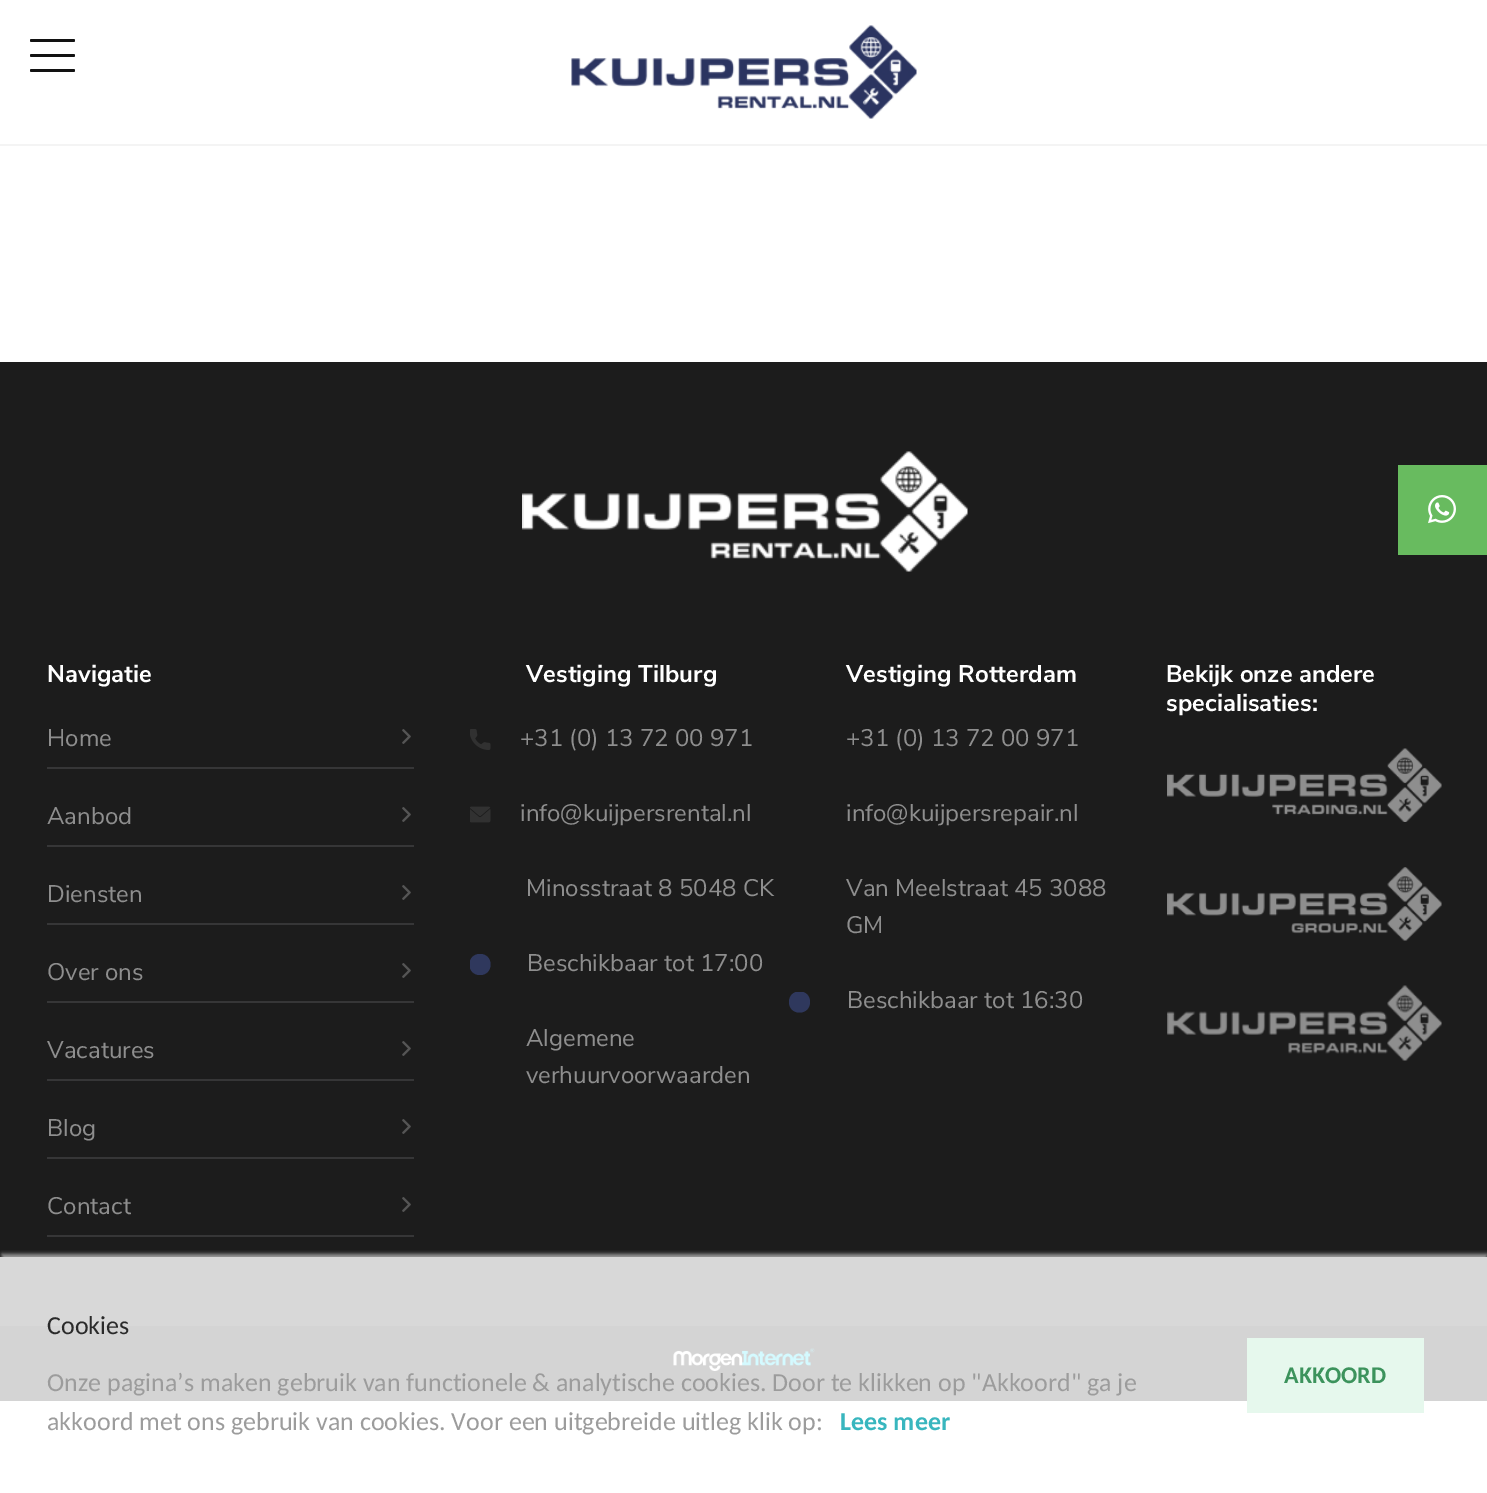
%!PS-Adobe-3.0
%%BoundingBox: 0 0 1487 1493
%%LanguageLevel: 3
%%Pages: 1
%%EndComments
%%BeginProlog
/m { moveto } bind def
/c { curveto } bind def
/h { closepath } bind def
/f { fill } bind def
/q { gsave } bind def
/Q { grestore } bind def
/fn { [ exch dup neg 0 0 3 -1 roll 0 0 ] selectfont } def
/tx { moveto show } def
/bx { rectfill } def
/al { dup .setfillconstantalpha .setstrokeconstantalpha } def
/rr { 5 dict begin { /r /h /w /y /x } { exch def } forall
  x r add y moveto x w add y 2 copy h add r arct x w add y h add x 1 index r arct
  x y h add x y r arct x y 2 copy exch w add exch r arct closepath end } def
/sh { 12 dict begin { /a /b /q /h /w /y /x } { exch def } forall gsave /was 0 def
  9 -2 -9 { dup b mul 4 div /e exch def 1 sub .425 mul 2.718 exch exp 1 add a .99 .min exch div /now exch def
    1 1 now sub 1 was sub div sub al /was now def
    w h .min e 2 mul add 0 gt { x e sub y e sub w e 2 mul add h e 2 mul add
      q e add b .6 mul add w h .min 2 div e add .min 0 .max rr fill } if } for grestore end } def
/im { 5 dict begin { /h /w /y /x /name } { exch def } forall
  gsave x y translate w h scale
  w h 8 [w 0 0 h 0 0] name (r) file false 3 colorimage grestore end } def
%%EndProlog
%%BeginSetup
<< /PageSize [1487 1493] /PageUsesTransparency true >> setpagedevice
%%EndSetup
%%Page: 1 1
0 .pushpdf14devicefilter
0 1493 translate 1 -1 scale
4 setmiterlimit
1 setgray
0 0 1487 1493 bx
0.957 setgray
0 144 1487 2 bx
0.071 setgray
30 69 45 3 1.5 rr f
30 39 45 3 1.5 rr f
30 54 45 3 1.5 rr f
(image0.raw) 571 25 346 94 im
0.11 setgray
0 362 1487 895 bx
0.408 0.733 0.373 setrgbcolor
1398 465 89 90 bx
(image1.raw) 1428 495 28 29 im
0.847 setgray
0 1257 1487 69 bx
(image2.raw) 522 451 446 121 im
/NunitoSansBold-Bold 24 fn
1 setgray
(Navigatie) 47 682 tx
0.212 0.212 0.216 setrgbcolor
47 767 367 2 bx
/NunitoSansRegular-Regular 24 fn
0.557 setgray
(Home) 47 746 tx
(image3.raw) 402 729 9 15 im
0.212 0.212 0.216 setrgbcolor
47 845 367 2 bx
0.557 setgray
(Aanbod) 47 824 tx
(image3.raw) 402 807 9 15 im
0.212 0.212 0.216 setrgbcolor
47 923 367 2 bx
0.557 setgray
(Diensten) 47 902 tx
(image3.raw) 402 885 9 15 im
0.212 0.212 0.216 setrgbcolor
47 1001 367 2 bx
0.557 setgray
(Over ons) 47 980 tx
(image3.raw) 402 963 9 15 im
0.212 0.212 0.216 setrgbcolor
47 1079 367 2 bx
0.557 setgray
(Vacatures) 47 1058 tx
(image3.raw) 402 1041 9 15 im
0.212 0.212 0.216 setrgbcolor
47 1157 367 2 bx
0.557 setgray
(Blog) 47 1136 tx
(image3.raw) 402 1119 9 15 im
0.212 0.212 0.216 setrgbcolor
47 1235 367 2 bx
0.557 setgray
(Contact) 47 1214 tx
(image3.raw) 402 1197 9 15 im
/NunitoSansBold-Bold 24 fn
1 setgray
(Vestiging Tilburg) 526 682 tx
(image4.raw) 470 729 21 21 im
/NunitoSansRegular-Regular 24 fn
0.557 setgray
(+31 \(0\) 13 72 00 971) 520 746 tx
(image5.raw) 470 806 21 17 im
(info@kuijpersrental.nl) 520 821 tx
(Minosstraat 8 5048 CK) 526 896 tx
q
470 954 21 21 rectclip
0.184 0.22 0.365 setrgbcolor
480 954 m 466 954 466 975 480 975 c 494 975 494 954 480 954 c h f
Q
(Beschikbaar tot 17:00) 527 971 tx
(Algemene) 526 1046 tx
(verhuurvoorwaarden) 526 1083 tx
/NunitoSansBold-Bold 24 fn
1 setgray
(Vestiging Rotterdam) 846 682 tx
/NunitoSansRegular-Regular 24 fn
0.557 setgray
(+31 \(0\) 13 72 00 971) 846 746 tx
(info@kuijpersrepair.nl) 846 821 tx
(Van Meelstraat 45 3088) 846 896 tx
(GM) 846 933 tx
q
789 992 21 21 rectclip
0.184 0.22 0.365 setrgbcolor
799.5 991.5 m 785.5 991.5 785.5 1012.5 799.5 1012.5 c 813.5 1012.5 813.5 991.5 799.5 991.5 c h f
Q
(Beschikbaar tot 16:30) 847 1008 tx
/NunitoSansBold-Bold 24 fn
1 setgray
(Bekijk onze andere) 1166 682 tx
(specialisaties:) 1166 711 tx
(image6.raw) 1167 748 275 74 im
(image7.raw) 1167 867 275 74 im
(image8.raw) 1167 985 275 76 im
0.831 setgray
0 1326 1487 75 bx
(image9.raw) 673 1348 142 23 im
q
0 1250 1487 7 rectclip
0.796 setgray
2 1254 1485 234 0 2 0.75 sh
Q
/Carlito-Regular 26 fn
0.165 setgray
(Cookies) 47 1334 tx
0.612 setgray
(Onze pagina’s maken gebruik van functionele & analytische cookies. Door te klikken op "Akkoord" ga je) 47 1391 tx
(akkoord met ons gebruik van cookies. Voor een uitgebreide uitleg klik op:) 47 1430 tx
/Carlito-Bold 26 fn
0.22 0.714 0.745 setrgbcolor
(Lees meer) 840 1430 tx
0.902 0.973 0.929 setrgbcolor
1247 1338 177 75 bx
/Carlito-Bold 24 fn
0.235 0.576 0.361 setrgbcolor
(AKKOORD) 1284 1383 tx
.poppdf14devicefilter showpage
%%EOF
